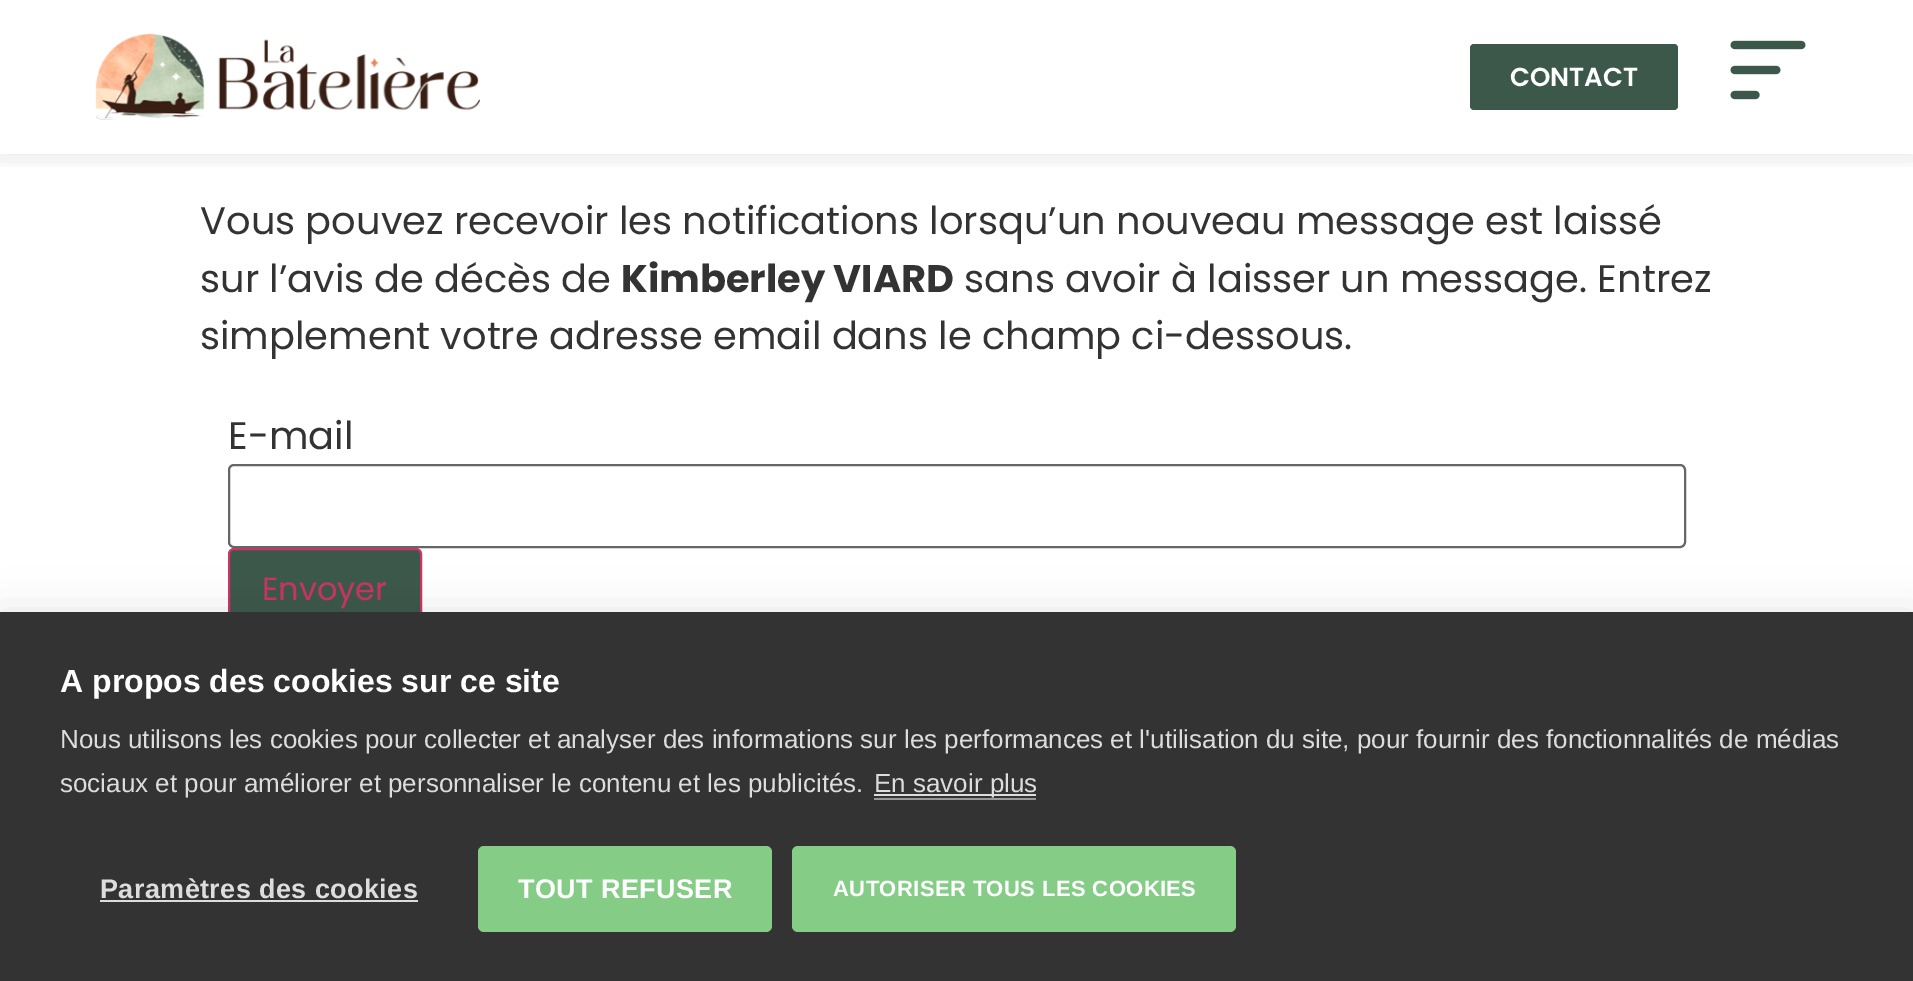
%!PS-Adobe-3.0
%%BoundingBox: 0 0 1913 981
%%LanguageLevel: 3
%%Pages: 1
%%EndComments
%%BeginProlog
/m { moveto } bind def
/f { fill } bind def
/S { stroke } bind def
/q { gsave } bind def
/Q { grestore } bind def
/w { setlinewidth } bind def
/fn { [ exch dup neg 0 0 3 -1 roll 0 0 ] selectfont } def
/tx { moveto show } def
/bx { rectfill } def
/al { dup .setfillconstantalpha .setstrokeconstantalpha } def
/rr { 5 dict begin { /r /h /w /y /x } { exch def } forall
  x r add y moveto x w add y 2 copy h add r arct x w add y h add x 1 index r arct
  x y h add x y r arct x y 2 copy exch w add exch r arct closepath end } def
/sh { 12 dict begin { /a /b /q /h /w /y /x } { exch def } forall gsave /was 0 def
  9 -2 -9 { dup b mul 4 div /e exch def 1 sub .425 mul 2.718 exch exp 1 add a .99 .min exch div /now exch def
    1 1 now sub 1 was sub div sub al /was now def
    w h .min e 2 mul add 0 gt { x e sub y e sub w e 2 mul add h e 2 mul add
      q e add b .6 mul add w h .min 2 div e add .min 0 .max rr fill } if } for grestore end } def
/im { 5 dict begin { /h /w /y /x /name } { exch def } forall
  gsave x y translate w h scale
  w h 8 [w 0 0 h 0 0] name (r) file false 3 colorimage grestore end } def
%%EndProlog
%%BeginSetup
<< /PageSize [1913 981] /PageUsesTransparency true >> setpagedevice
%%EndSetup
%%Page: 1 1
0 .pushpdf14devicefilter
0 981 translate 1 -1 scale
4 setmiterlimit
1 setgray
0 0 1913 981 bx
q
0 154 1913 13 rectclip
0 setgray
0 -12 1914 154 0 17 0.27 sh
Q
(image0.raw) 95 33 385 87 im
0.235 0.345 0.294 setrgbcolor
1470 44 208 66 4 rr f
/Poppins-SemiBold 26 fn
1 setgray
(CONTACT) 1510 86 tx
(image1.raw) 1730 40 76 60 im
/Poppins-Regular 38.4 fn
0.2 setgray
(Vous pouvez recevoir les notifications lorsqu’un nouveau message est laissé) 200 234 tx
(sur l’avis de décès de) 200 292 tx
/Poppins-Bold 38.4 fn
(Kimberley VIARD) 621 292 tx
/Poppins-Regular 38.4 fn
(sans avoir à laisser un message. Entrez) 964 292 tx
(simplement votre adresse email dans le champ ci-dessous.) 200 349 tx
(E-mail) 228 449 tx
0.4 setgray
2 w
229 465 1456 82 5 rr S
0.235 0.345 0.294 setrgbcolor
229 549 192 82 5 rr q f Q
0.8 0.2 0.4 setrgbcolor
S
/Poppins-Regular 32 fn
(Envoyer) 262 600 tx
0 setgray
0 612 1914 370 0 20 0.1 sh
0.2 setgray
0 612 1913 369 bx
/LiberationSans-Bold 32 fn
1 setgray
(A propos des cookies sur ce site) 60 692 tx
/LiberationSans-Regular 26 fn
0.867 setgray
(Nous utilisons les cookies pour collecter et analyser des informations sur les performances et l'utilisation du site, pour fournir des fonctionnalités de médias) 60 748 tx
(sociaux et pour améliorer et personnaliser le contenu et les publicités.) 60 792 tx
874 794 162 2 bx
(En savoir plus) 874 792 tx
0.6 setgray
874 798 162 2 bx
/LiberationSans-Bold 27 fn
0.867 setgray
100 898 m 0.4 0 (Paramètres des cookies) ashow
100 900 318 2 bx
0.522 0.8 0.525 setrgbcolor
478 846 294 86 6 rr f
1 setgray
518 898 m 0.4 0 (TOUT REFUSER) ashow
0.522 0.8 0.525 setrgbcolor
792 846 444 86 6 rr f
/LiberationSans-Bold 22 fn
1 setgray
833 896 m 0.4 0 (AUTORISER TOUS LES COOKIES) ashow
.poppdf14devicefilter showpage
%%EOF
